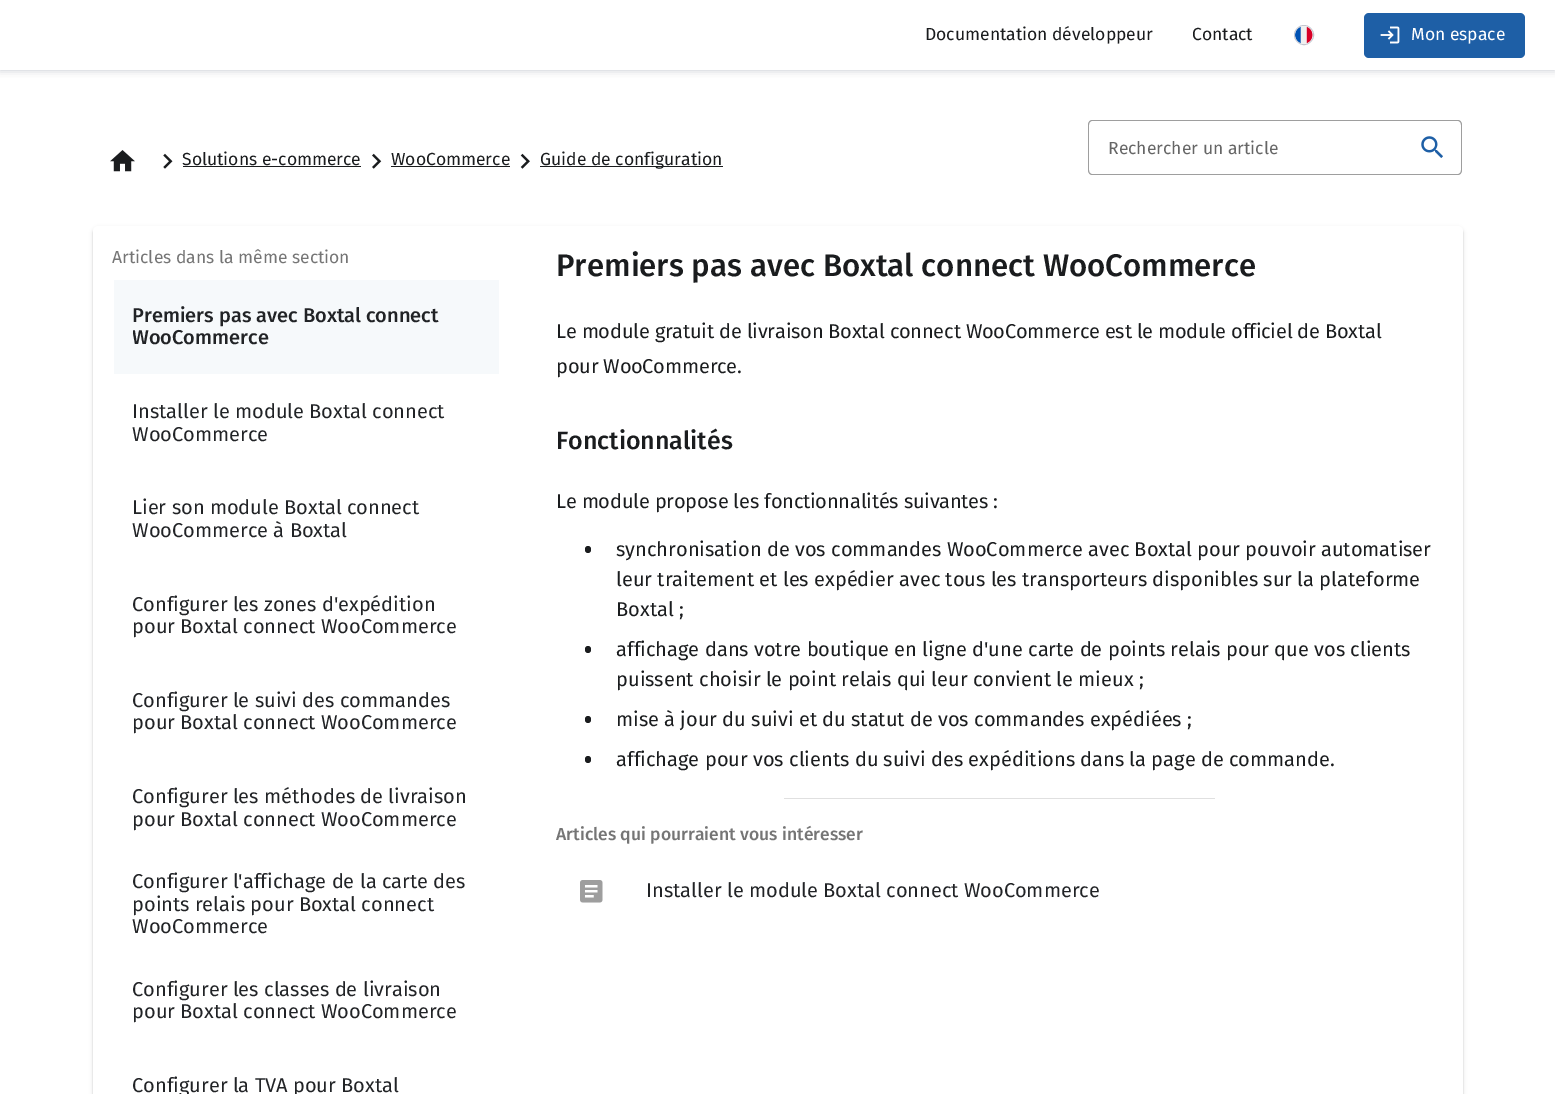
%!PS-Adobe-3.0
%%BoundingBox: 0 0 1555 1094
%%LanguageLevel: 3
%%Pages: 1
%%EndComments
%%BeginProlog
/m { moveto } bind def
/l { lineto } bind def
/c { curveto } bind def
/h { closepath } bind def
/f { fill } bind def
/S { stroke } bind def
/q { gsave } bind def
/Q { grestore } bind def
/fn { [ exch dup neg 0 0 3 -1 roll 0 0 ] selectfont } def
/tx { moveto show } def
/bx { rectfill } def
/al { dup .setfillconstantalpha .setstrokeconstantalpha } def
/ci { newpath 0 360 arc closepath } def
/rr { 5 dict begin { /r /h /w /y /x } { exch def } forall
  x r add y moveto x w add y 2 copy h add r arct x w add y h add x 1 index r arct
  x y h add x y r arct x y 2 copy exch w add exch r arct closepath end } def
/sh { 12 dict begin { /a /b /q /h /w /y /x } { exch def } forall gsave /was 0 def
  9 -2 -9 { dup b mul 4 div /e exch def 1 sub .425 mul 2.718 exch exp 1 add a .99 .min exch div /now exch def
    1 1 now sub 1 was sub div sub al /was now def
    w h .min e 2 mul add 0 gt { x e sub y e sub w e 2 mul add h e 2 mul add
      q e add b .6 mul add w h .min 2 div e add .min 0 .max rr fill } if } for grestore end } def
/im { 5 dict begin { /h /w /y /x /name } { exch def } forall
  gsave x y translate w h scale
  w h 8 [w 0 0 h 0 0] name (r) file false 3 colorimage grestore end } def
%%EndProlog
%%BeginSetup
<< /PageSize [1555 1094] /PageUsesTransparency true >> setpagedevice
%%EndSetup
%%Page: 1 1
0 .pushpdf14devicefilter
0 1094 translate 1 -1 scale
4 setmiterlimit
1 setgray
0 0 1555 1094 bx
q
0 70 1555 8 rectclip
0.765 0.776 0.812 setrgbcolor
0 0 1555 70 0 4 1 sh
Q
/FiraSans-Regular 17.5 fn
0.102 0.11 0.118 setrgbcolor
(Documentation développeur) 925 40 tx
(Contact) 1192 40 tx
0.765 0.776 0.812 setrgbcolor
1304 35 9.5 ci S
(image0.raw) 1295 26 18 18 im
0.118 0.373 0.651 setrgbcolor
1364 13 161 45 5 rr f
(image1.raw) 1380 26 20 18 im
1 setgray
(Mon espace) 1411 40 tx
0.62 setgray
1092 120 m 1102 120 l 1102 175 l 1092 175 l 1090 175 1088 173 1088 170 c 1088 125 l 1088 122 1090 120 1092 120 c h 1092 121 m 1102 121 l 1102 174 l 1092 174 l 1090 174 1089 172 1089 170 c 1089 125 l 1089 123 1090 121 1092 121 c h eofill
1101 120 m 1272 120 l 1272 121 l 1102 121 l h f
1272 175 m 1101 175 l 1102 174 l 1272 174 l h f
1272 120 m 1458 120 l 1460 120 1462 122 1462 125 c 1462 170 l 1462 173 1460 175 1458 175 c 1272 175 l h 1272 121 m 1458 121 l 1460 121 1461 123 1461 125 c 1461 170 l 1461 172 1460 174 1458 174 c 1272 174 l h eofill
0.4 setgray
(Rechercher un article) 1108 154 tx
(image2.raw) 1421 136 22 22 im
(image3.raw) 110 150 25 22 im
(image4.raw) 163 153 10 16 im
0.102 0.11 0.118 setrgbcolor
(Solutions e-commerce) 182 165 tx
183 166 178 1 bx
(image5.raw) 372 153 10 16 im
(WooCommerce) 391 165 tx
391 166 119 1 bx
(image6.raw) 520 153 10 16 im
540 166 183 1 bx
(Guide de configuration) 540 165 tx
0 setgray
93 228 1370 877 5 2 0.12 sh
93 228 1370 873 5 0.5 0.14 sh
1 setgray
93 226 1370 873 5 rr f
0.965 0.976 0.984 setrgbcolor
114 280 385 94 bx
0.459 setgray
(Articles dans la même section) 112 263 tx
/FiraSans-Medium 20 fn
0.129 0.137 0.149 setrgbcolor
(Premiers pas avec Boxtal connect) 132 322 tx
q
133 305 347 45 rectclip
(WooCommerce) 132 344 tx
Q
/FiraSans-Regular 20 fn
(Installer le module Boxtal connect) 132 418 tx
(WooCommerce) 132 441 tx
(Lier son module Boxtal connect) 132 514 tx
(WooCommerce à Boxtal) 132 537 tx
(Configurer les zones d'expédition) 132 611 tx
(pour Boxtal connect WooCommerce) 132 633 tx
(Configurer le suivi des commandes) 132 707 tx
(pour Boxtal connect WooCommerce) 132 729 tx
(Configurer les méthodes de livraison) 132 803 tx
(pour Boxtal connect WooCommerce) 132 826 tx
(Configurer l'affichage de la carte des) 132 888 tx
(points relais pour Boxtal connect) 132 911 tx
(WooCommerce) 132 933 tx
(Configurer les classes de livraison) 132 996 tx
(pour Boxtal connect WooCommerce) 132 1018 tx
(Configurer la TVA pour Boxtal) 132 1092 tx
/FiraSans-Medium 31.25 fn
0.102 0.11 0.118 setrgbcolor
(Premiers pas avec Boxtal connect WooCommerce) 556 276 tx
/FiraSans-Regular 20 fn
556 338 m -0.2 0 (Le module gratuit de livraison Boxtal connect WooCommerce est le module officiel de Boxtal) ashow
556 373 m -0.2 0 (pour WooCommerce.) ashow
/FiraSans-Medium 25 fn
(Fonctionnalités) 556 449 tx
/FiraSans-Regular 20 fn
556 508 m -0.2 0 (Le module propose les fonctionnalités suivantes :) ashow
585 546 6 7 3 rr f
(synchronisation de vos commandes WooCommerce avec Boxtal pour pouvoir automatiser) 616 556 tx
(leur traitement et les expédier avec tous les transporteurs disponibles sur la plateforme) 616 586 tx
(Boxtal ;) 616 616 tx
585 646 6 7 3 rr f
(affichage dans votre boutique en ligne d'une carte de points relais pour que vos clients) 616 656 tx
(puissent choisir le point relais qui leur convient le mieux ;) 616 686 tx
585 716 6 7 3 rr f
(mise à jour du suivi et du statut de vos commandes expédiées ;) 616 726 tx
585 756 6 7 3 rr f
(affichage pour vos clients du suivi des expéditions dans la page de commande.) 616 766 tx
0.878 setgray
784 798 431 1 bx
/FiraSans-Medium 17.5 fn
0.459 setgray
(Articles qui pourraient vous intéresser) 556 840 tx
(image7.raw) 580 880 23 23 im
/FiraSans-Regular 20 fn
0.129 0.137 0.149 setrgbcolor
(Installer le module Boxtal connect WooCommerce) 646 897 tx
.poppdf14devicefilter showpage
%%EOF
